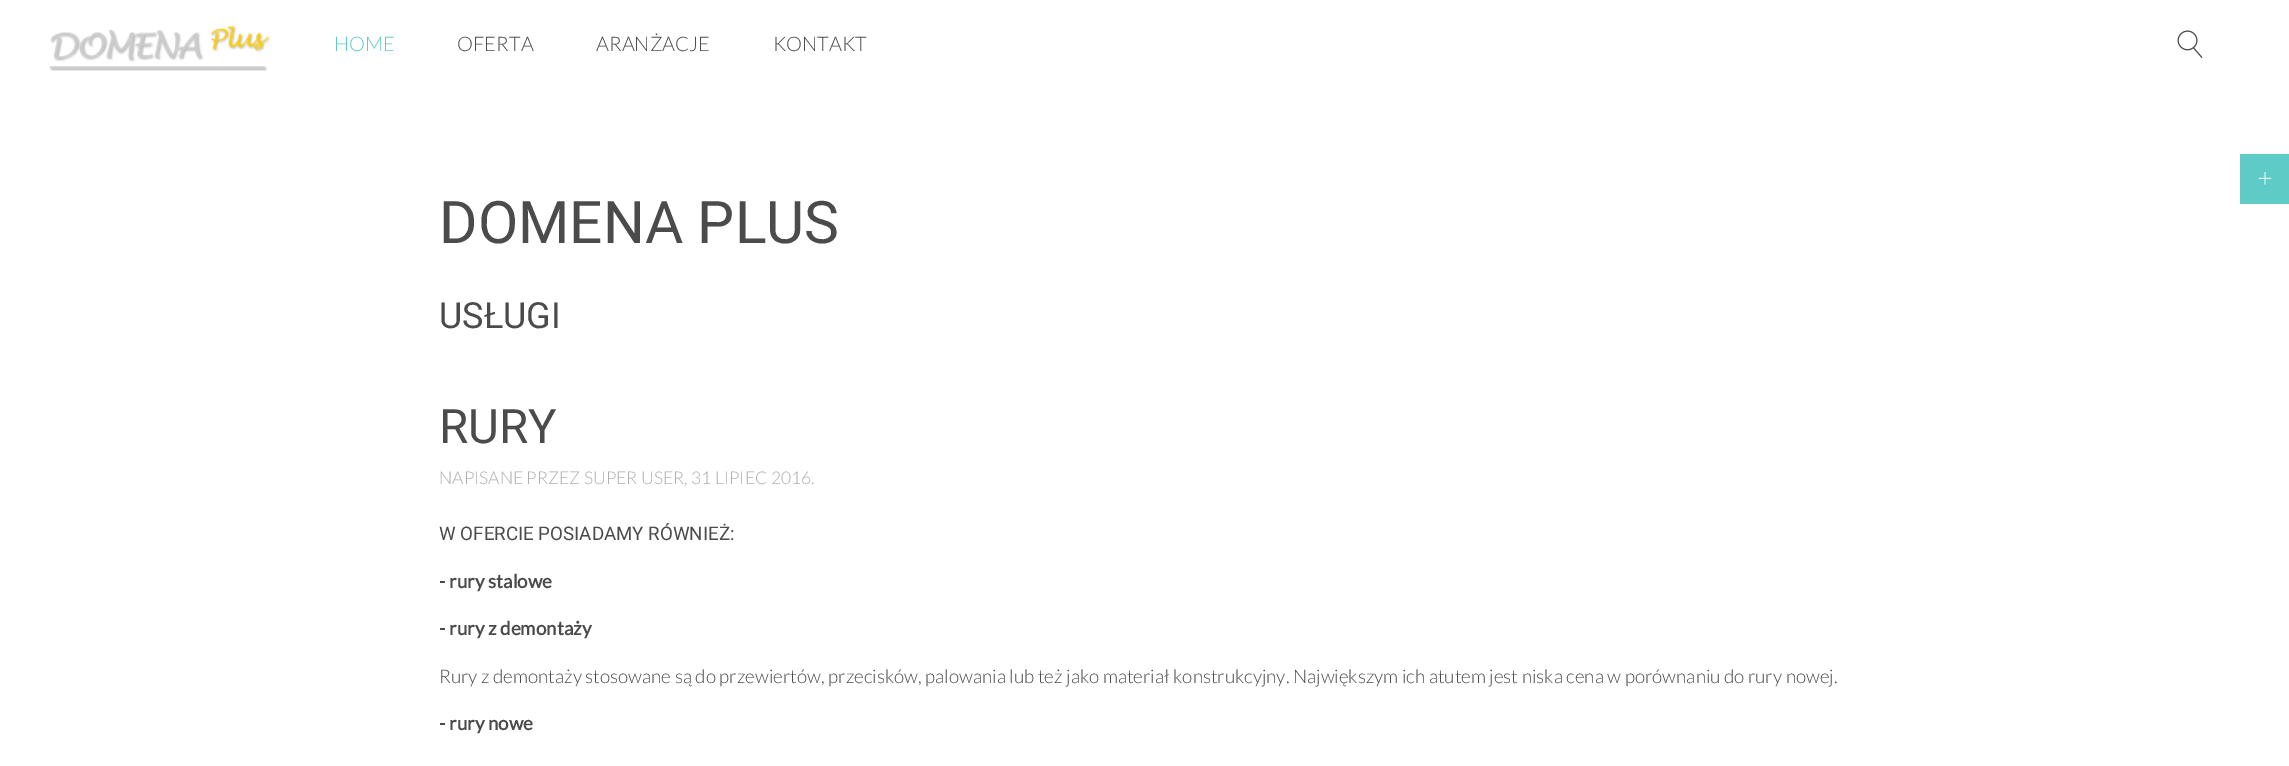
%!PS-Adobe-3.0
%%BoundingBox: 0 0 2289 766
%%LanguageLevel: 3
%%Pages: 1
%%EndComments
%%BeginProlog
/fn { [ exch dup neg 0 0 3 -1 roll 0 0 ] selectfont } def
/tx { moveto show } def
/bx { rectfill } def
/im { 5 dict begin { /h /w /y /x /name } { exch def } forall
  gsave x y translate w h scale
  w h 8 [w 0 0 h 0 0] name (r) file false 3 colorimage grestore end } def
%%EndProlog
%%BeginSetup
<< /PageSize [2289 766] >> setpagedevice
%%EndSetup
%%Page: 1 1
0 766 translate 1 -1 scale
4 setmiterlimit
1 setgray
0 0 2289 766 bx
(image0.raw) 50 25 221 46 im
/Lato-Light 20 fn
0.369 0.796 0.776 setrgbcolor
(HOME) 334 51 tx
0.294 setgray
(OFERTA) 457 51 tx
(ARANŻACJE) 596 51 tx
(KONTAKT) 773 51 tx
(image1.raw) 2177 30 26 28 im
0.369 0.796 0.776 setrgbcolor
2240 154 49 50 bx
(image2.raw) 2258 172 14 13 im
/Roboto-Regular 58.75 fn
0.294 setgray
(DOMENA PLUS) 439 243 tx
/Roboto-Regular 36 fn
(USŁUGI) 439 328 tx
/Roboto-Regular 47.5 fn
(RURY) 439 443 tx
/Lato-Light 17.5 fn
0.682 setgray
(NAPISANE PRZEZ SUPER USER, 31 LIPIEC 2016.) 439 484 tx
/Roboto-Regular 18.75 fn
0.294 setgray
(W OFERCIE POSIADAMY RÓWNIEŻ:) 439 540 tx
/Lato-Bold 18.75 fn
(- rury stalowe) 439 588 tx
(- rury z demontaży) 439 635 tx
/Lato-Light 18.75 fn
(Rury z demontaży stosowane są do przewiertów, przecisków, palowania lub też jako materiał konstrukcyjny. Największym ich atutem jest niska cena w porównaniu do rury nowej.) 439 683 tx
/Lato-Bold 18.75 fn
(- rury nowe) 439 730 tx
showpage
%%EOF
